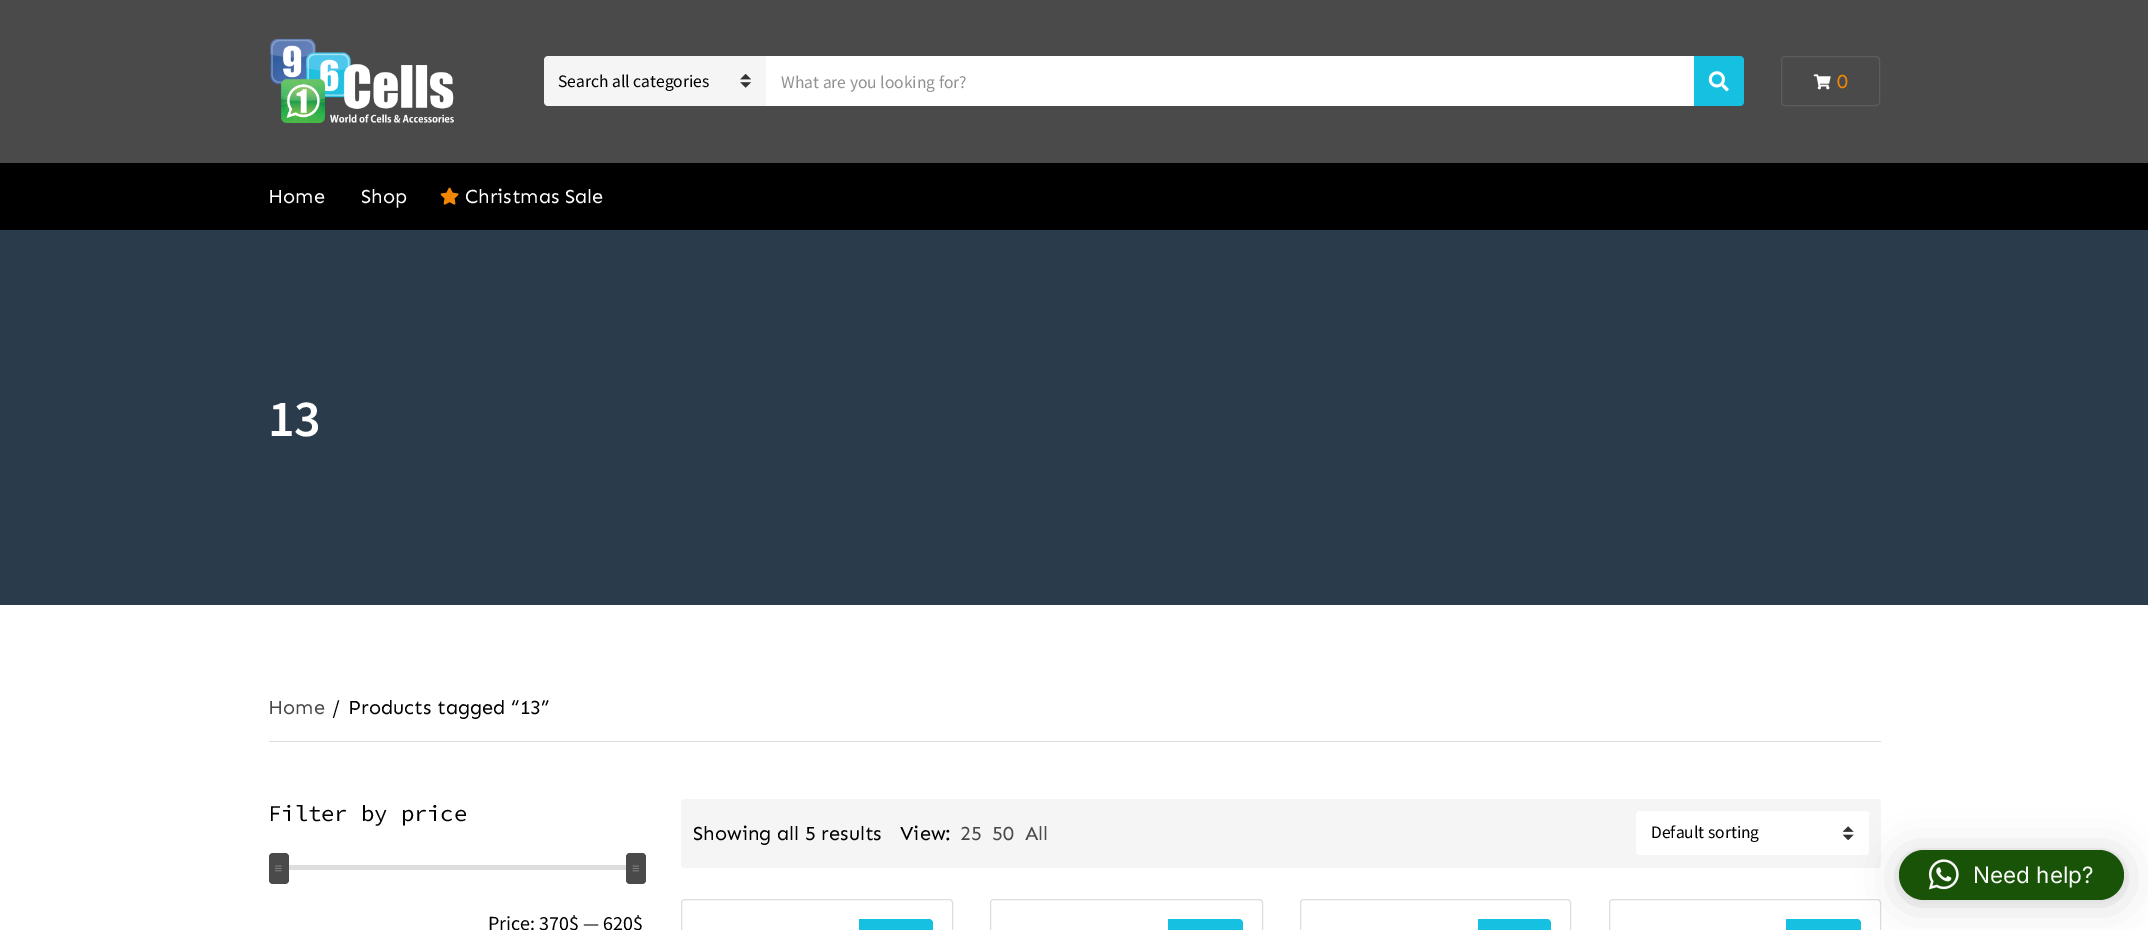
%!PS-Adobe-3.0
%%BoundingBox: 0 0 2148 930
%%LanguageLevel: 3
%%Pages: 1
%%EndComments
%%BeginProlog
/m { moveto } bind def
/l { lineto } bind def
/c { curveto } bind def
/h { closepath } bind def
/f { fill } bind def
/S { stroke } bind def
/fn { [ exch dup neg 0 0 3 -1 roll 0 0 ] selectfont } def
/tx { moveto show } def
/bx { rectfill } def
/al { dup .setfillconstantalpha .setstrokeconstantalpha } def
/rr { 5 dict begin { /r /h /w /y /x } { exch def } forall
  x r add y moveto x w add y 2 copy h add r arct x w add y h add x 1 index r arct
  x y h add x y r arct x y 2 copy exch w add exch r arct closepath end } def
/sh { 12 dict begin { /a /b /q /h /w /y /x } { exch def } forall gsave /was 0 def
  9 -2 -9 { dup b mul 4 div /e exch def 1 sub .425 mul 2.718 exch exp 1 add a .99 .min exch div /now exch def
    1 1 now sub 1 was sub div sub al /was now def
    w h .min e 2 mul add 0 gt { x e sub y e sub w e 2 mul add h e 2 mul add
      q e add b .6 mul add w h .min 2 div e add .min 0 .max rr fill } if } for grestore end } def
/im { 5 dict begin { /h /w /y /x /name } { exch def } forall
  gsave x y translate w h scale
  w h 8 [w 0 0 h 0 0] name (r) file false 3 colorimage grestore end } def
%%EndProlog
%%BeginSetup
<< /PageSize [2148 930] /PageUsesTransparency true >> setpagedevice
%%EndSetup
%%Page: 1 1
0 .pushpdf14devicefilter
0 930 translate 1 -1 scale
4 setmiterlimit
1 setgray
0 0 2148 930 bx
0.29 setgray
0 0 2148 163 bx
(image0.raw) 270 38 184 85 im
0.961 setgray
548 56 m 766 56 l 766 106 l 548 106 l 546 106 544 104 544 102 c 544 60 l 544 58 546 56 548 56 c h f
(image1.raw) 740 74 11 14 im
/SourceSansPro-Regular 17.5 fn
0 setgray
(Search all categories) 558 87 tx
1 setgray
766 56 928 50 bx
0.569 setgray
(What are you looking for?) 781 88 tx
0.086 0.753 0.882 setrgbcolor
1694 56 m 1740 56 l 1742 56 1744 58 1744 60 c 1744 102 l 1744 104 1742 106 1740 106 c 1694 106 l h f
(image2.raw) 1708 71 21 21 im
0.361 setgray
1781.5 56.5 98 49 3.5 rr S
(image3.raw) 1813 74 18 16 im
/Sen-Regular 20 fn
0.941 0.533 0.016 setrgbcolor
(0) 1837 88 tx
0 setgray
0 163 2148 67 bx
1 setgray
(Home) 268 203 tx
(Shop) 361 203 tx
(image4.raw) 440 187 19 18 im
(Christmas Sale) 465 203 tx
0.165 0.235 0.298 setrgbcolor
0 230 2148 375 bx
/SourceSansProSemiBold-SemiBold 52 fn
1 setgray
268 436 m -1 0 (13) ashow
0.867 setgray
269 741 1612 1 bx
/Sen-Regular 20 fn
0.29 setgray
(Home) 268 714 tx
0 setgray
(/) 332 714 tx
(Products tagged “13”) 348 714 tx
/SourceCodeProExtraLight-Regular 22.5 fn
268 821 m -0.25 0 (Filter by price) ashow
0.867 setgray
289 865 337 5 bx
0.29 setgray
269 853 20 31 4 rr f
(image5.raw) 275 865 7 7 im
626 853 20 31 4 rr f
(image6.raw) 632 865 7 7 im
/SourceSansPro-Regular 20 fn
0 setgray
(Price: 370$ — 620$) 488 930 tx
0.961 setgray
681 799 1200 69 4 rr f
/Sen-Regular 20 fn
0 setgray
(Showing all 5 results) 693 840 tx
(View:) 900 840 tx
0.29 setgray
(25) 960 840 tx
(50) 992 840 tx
(All) 1025 840 tx
1 setgray
1636 811 233 44 4 rr f
(image7.raw) 1843 826 11 14 im
/SourceSansPro-Regular 17.5 fn
0 setgray
(Default sorting) 1651 838 tx
0.867 setgray
681.5 899.5 271 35 3.5 rr S
0.086 0.753 0.882 setrgbcolor
859 919 m 929 919 l 931 919 933 921 933 923 c 933 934 l 859 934 l h f
0.867 setgray
990.5 899.5 272 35 3.5 rr S
0.086 0.753 0.882 setrgbcolor
1168 919 m 1239 919 l 1241 919 1243 921 1243 923 c 1243 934 l 1168 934 l h f
0.867 setgray
1300.5 899.5 270 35 3.5 rr S
0.086 0.753 0.882 setrgbcolor
1478 919 m 1547 919 l 1549 919 1551 921 1551 923 c 1551 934 l 1478 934 l h f
0.867 setgray
1609.5 899.5 271 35 3.5 rr S
0.086 0.753 0.882 setrgbcolor
1786 919 m 1857 919 l 1859 919 1861 921 1861 923 c 1861 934 l 1786 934 l h f
0 setgray
1899 853 225 50 25 20 0.16 sh
1899 851 225 50 25 4 0.06 sh
0.094 0.325 0.027 setrgbcolor
1899 850 225 50 25 rr f
(image8.raw) 1928 859 31 31 im
/Inter-Regular 22.5 fn
0.976 setgray
(Need help?) 1973 883 tx
.poppdf14devicefilter showpage
%%EOF
